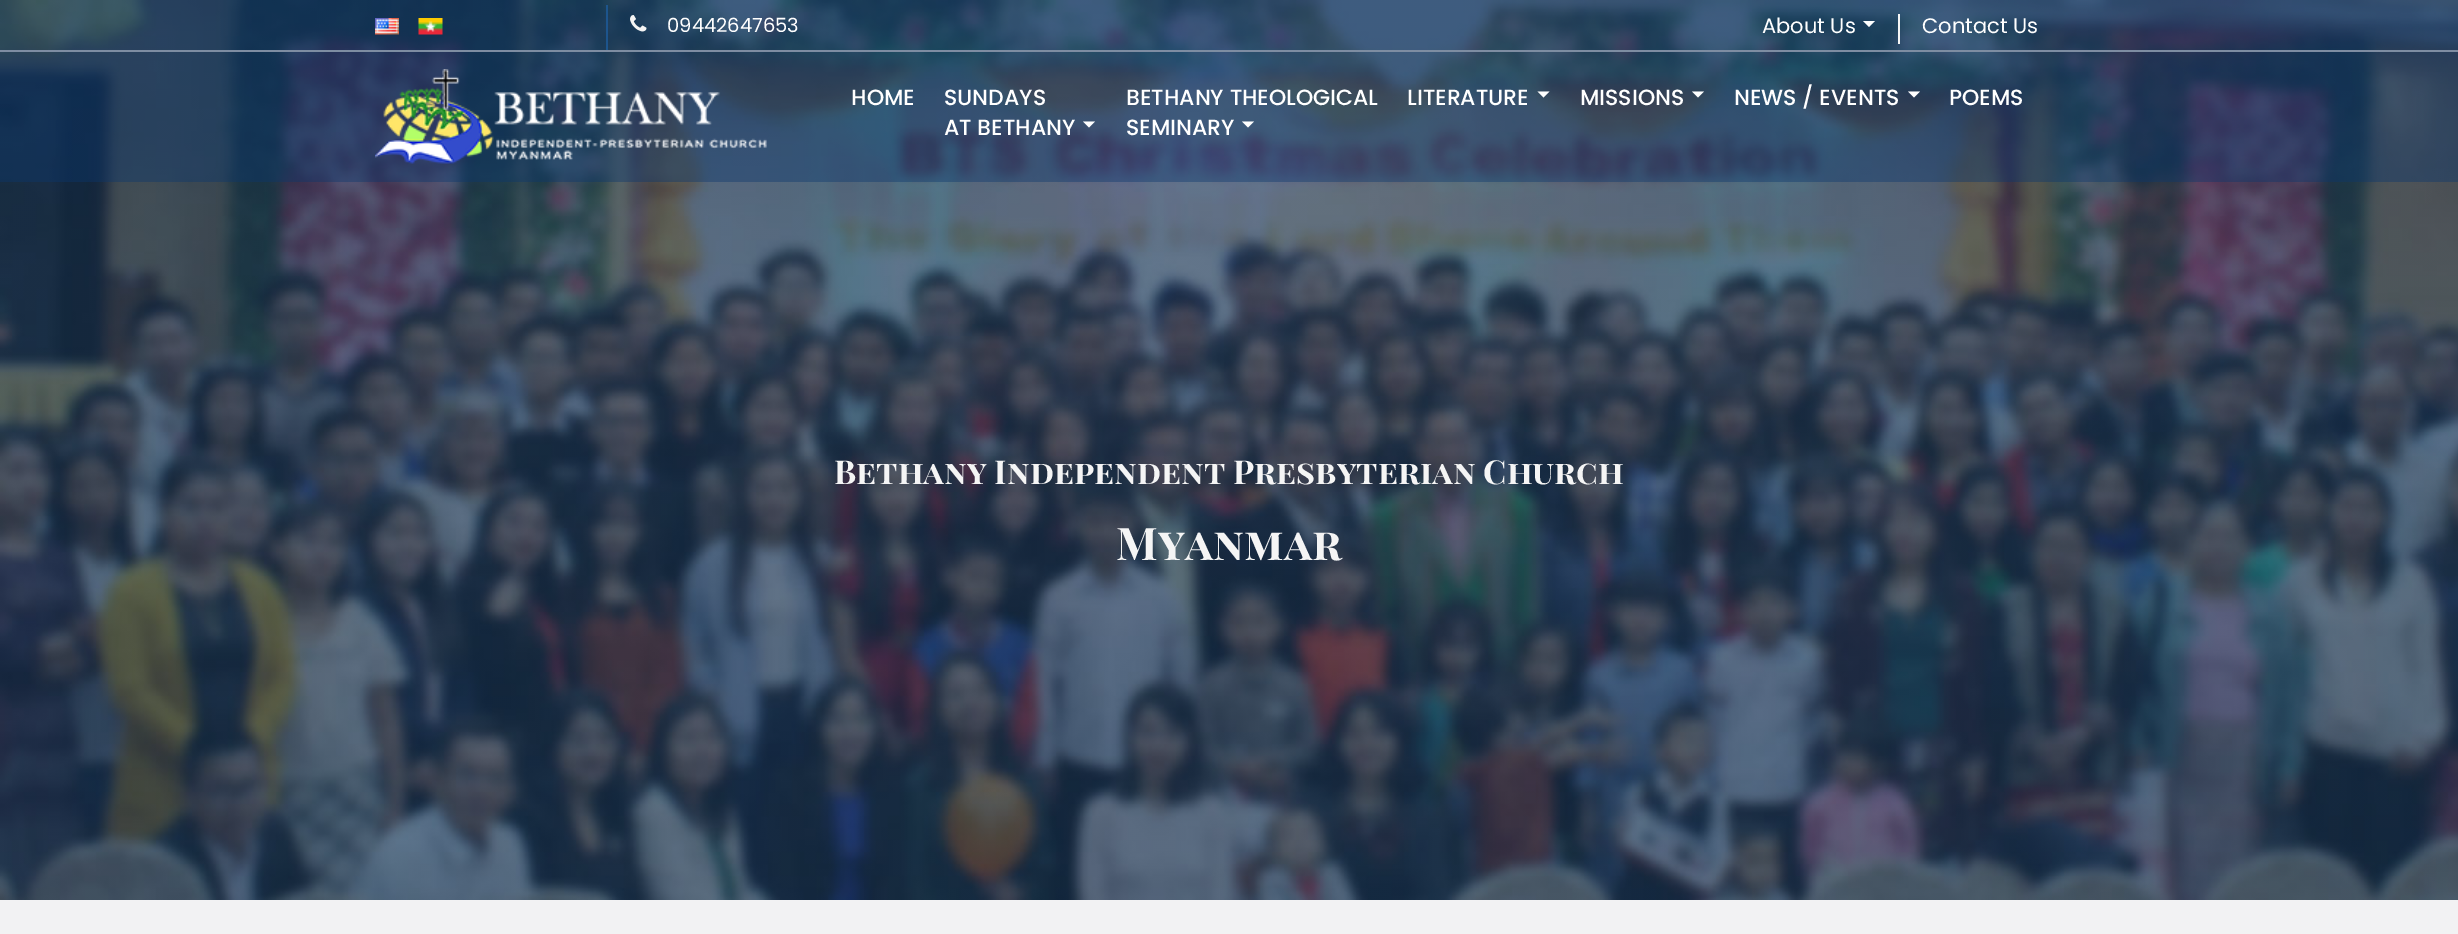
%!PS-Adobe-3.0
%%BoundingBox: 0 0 2458 934
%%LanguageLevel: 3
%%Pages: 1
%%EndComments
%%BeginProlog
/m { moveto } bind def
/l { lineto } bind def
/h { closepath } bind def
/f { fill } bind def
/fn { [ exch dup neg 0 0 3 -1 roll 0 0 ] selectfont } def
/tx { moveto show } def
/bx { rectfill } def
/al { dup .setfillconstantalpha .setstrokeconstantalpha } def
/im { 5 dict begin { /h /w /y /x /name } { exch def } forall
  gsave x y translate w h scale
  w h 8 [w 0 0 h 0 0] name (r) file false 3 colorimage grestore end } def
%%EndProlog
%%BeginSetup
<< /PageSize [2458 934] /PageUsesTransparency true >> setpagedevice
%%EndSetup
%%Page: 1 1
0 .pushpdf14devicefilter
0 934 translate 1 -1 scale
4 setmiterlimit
1 setgray
0 0 2458 934 bx
(image0.raw) 0 0 2458 900 im
0.4 al
0.035 0.212 0.431 setrgbcolor
0 0 2458 182 bx
1 al
0.494 0.553 0.635 setrgbcolor
0 50 2458 2 bx
0.6 al
0.114 0.396 0.69 setrgbcolor
606 5 2 45 bx
1 al
(image1.raw) 375 18 24 17 im
(image2.raw) 418 18 25 17 im
(image3.raw) 630 15 17 17 im
/Poppins-Regular 19.5 fn
1 setgray
(09442647653) 667 32 tx
0.961 setgray
1898 14 2 30 bx
/Poppins-Regular 21 fn
1 setgray
(About Us) 1762 33 tx
1863 21 m 1875 21 l 1869 27 l h f
(Contact Us) 1922 33 tx
(image4.raw) 375 69 392 95 im
/Poppins-Medium 22 fn
(HOME) 851 105 tx
(SUNDAYS) 944 105 tx
(AT BETHANY) 944 135 tx
1083 121.5 m 1095 121.5 l 1089 127.5 l h f
(BETHANY THEOLOGICAL) 1126 105 tx
(SEMINARY) 1126 135 tx
1242 121.5 m 1254 121.5 l 1248 127.5 l h f
(LITERATURE) 1407 105 tx
1537.5 91.5 m 1549.5 91.5 l 1543.5 97.5 l h f
(MISSIONS) 1580 105 tx
1692 91.5 m 1704 91.5 l 1698 97.5 l h f
(NEWS / EVENTS) 1734 105 tx
1908 91.5 m 1920 91.5 l 1914 97.5 l h f
(POEMS) 1949 105 tx
/PlayfairDisplaySC-Bold 33 fn
0.961 setgray
(Bethany Independent Presbyterian Church) 834 484 tx
/PlayfairDisplaySC-Bold 45 fn
(Myanmar) 1116 560 tx
0.949 0.949 0.953 setrgbcolor
0 900 2458 34 bx
.poppdf14devicefilter showpage
%%EOF
